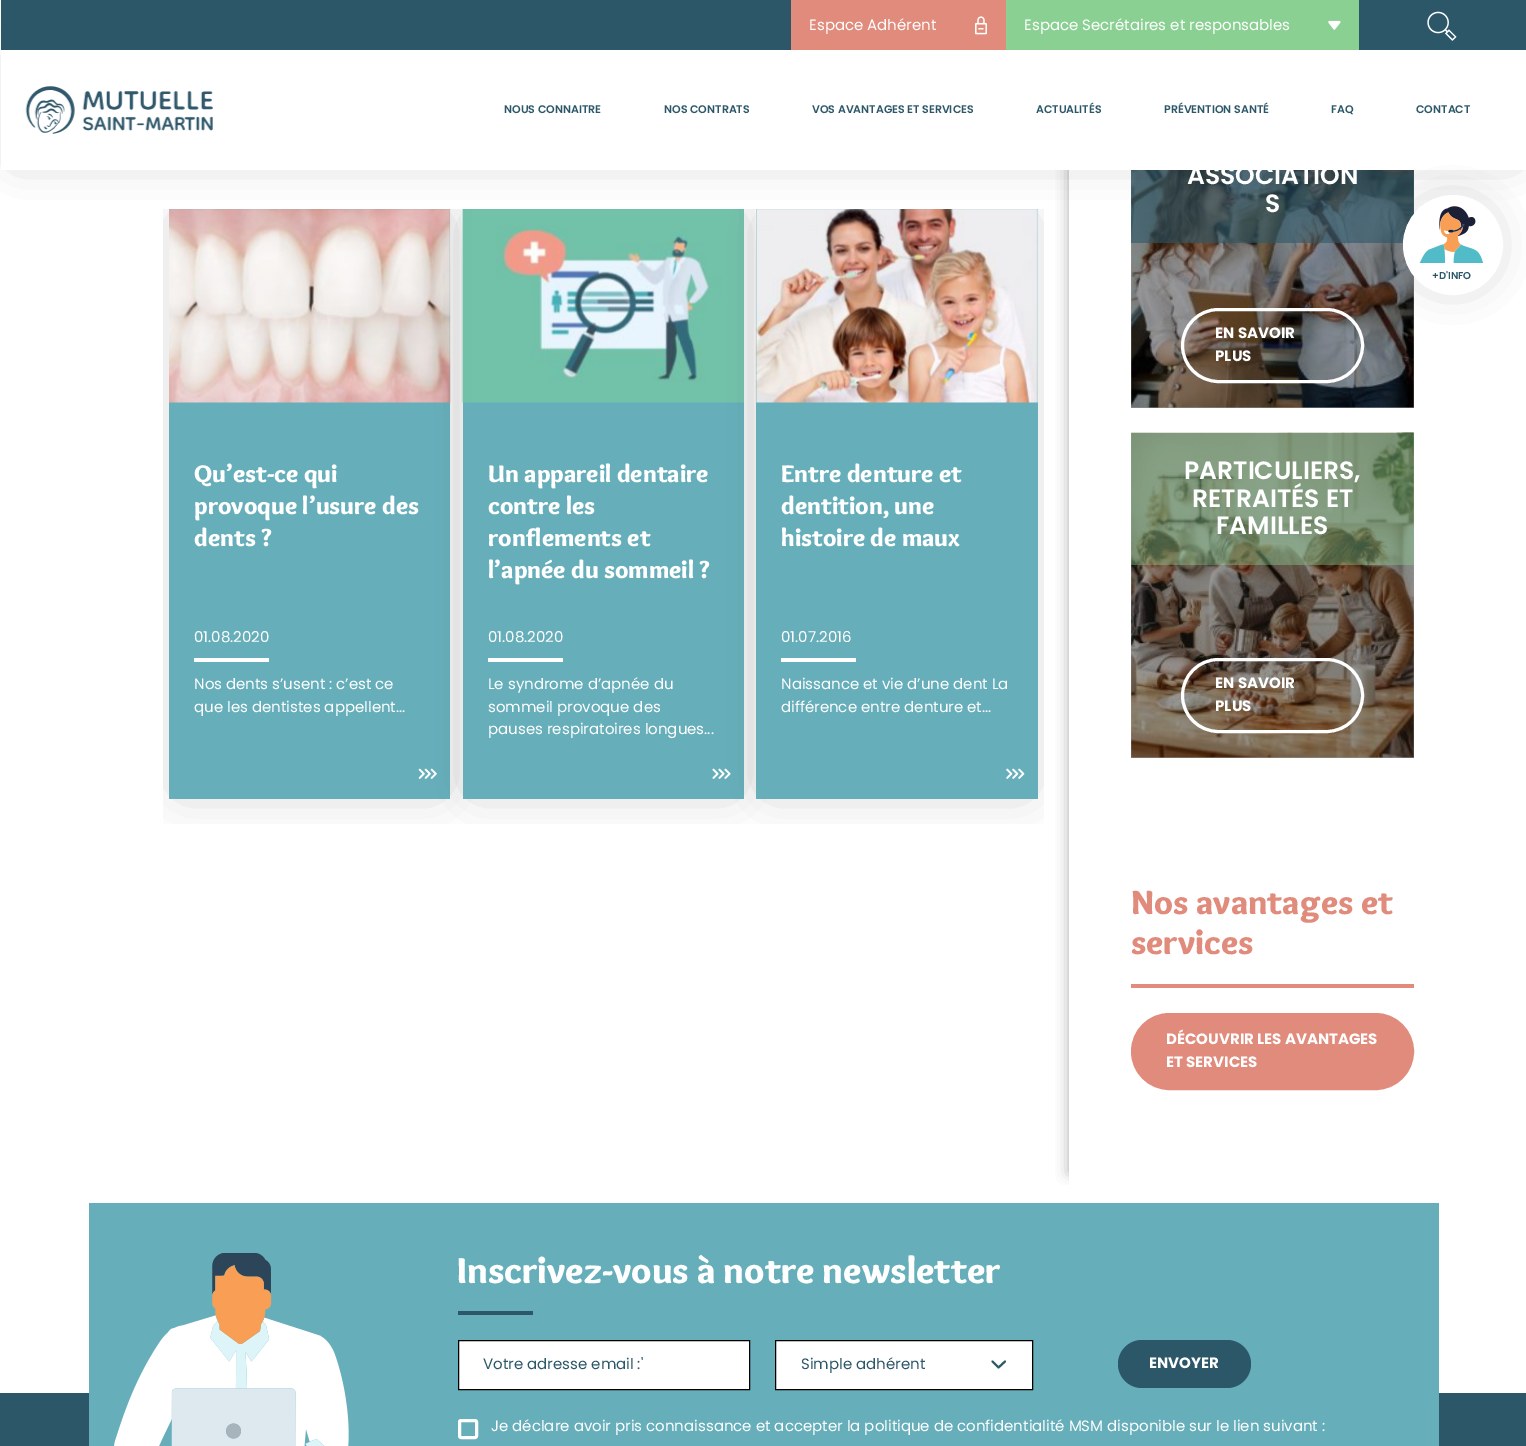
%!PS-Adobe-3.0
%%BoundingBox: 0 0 1526 1446
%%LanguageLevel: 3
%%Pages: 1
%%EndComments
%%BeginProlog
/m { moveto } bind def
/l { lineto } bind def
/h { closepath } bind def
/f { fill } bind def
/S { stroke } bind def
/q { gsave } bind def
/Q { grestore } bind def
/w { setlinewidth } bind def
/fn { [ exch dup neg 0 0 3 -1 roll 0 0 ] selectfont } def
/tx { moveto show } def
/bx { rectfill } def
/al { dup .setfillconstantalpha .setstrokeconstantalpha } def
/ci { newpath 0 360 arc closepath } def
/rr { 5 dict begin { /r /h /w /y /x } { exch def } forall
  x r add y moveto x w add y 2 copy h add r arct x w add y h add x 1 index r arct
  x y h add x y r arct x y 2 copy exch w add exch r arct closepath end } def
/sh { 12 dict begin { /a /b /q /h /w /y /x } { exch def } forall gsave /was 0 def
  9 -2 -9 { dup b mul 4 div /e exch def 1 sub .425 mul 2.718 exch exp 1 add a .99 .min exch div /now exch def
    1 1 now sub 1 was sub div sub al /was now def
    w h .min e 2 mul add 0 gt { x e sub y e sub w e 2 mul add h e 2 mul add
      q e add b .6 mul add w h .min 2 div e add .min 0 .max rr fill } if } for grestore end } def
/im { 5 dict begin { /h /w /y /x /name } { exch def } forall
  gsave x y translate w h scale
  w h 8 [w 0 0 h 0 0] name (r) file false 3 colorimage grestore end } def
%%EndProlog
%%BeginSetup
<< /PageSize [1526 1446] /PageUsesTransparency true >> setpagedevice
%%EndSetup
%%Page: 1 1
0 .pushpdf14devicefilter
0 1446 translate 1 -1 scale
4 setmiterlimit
1 setgray
0 0 1526 1446 bx
0.6 setgray
1131 433 283 325 bx
1131 170 283 238 bx
0.988 setgray
163 209 881 615 bx
q
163 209 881 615 rectclip
0 setgray
185 225 249 558 0 20.5 0.31 sh
Q
0.4 0.686 0.729 setrgbcolor
169 209 281 590 bx
(image5.raw) 169 209 282 194 im
(image6.raw) 418 768 19 11 im
q
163 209 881 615 rectclip
0 setgray
479 225 249 558 0 20.5 0.31 sh
Q
463 209 281 590 bx
(image7.raw) 461 209 283 194 im
(image8.raw) 712 768 19 11 im
q
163 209 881 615 rectclip
0 setgray
773 225 248 558 0 20.5 0.31 sh
Q
756 209 282 590 bx
(image9.raw) 755 209 283 194 im
q
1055 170 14 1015 rectclip
0.667 setgray
1069 -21 425 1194 0 7 1 sh
Q
(image11.raw) 1131 170 283 238 im
0.6 al
0.173 0.341 0.412 setrgbcolor
1131 170 283 73 bx
1 al
0 setgray
18 66 1493 88 0 20.5 0.31 sh
0.173 0.341 0.412 setrgbcolor
1 0 1525 50 bx
0.878 0.545 0.482 setrgbcolor
791 0 215 50 bx
/Poppins-Regular 15 fn
1 setgray
(Espace Adhérent) 809 30 tx
(image0.raw) 975 16 12 19 im
0.541 0.816 0.573 setrgbcolor
1006 0 353 50 bx
1 setgray
(Espace Secrétaires et responsables) 1024 30 tx
(image1.raw) 1328 20 13 10 im
(image2.raw) 1427 11 30 30 im
1 50 1525 120 bx
(image3.raw) 25 86 188 48 im
/Poppins-SemiBold 11 fn
0.173 0.341 0.412 setrgbcolor
(NOUS CONNAITRE) 504 113 tx
(NOS CONTRATS) 664 113 tx
(VOS AVANTAGES ET SERVICES) 812 113 tx
(ACTUALITÉS) 1036 113 tx
(PRÉVENTION SANTÉ) 1164 113 tx
(FAQ) 1331 113 tx
(CONTACT) 1416 113 tx
1 setgray
3 w
1182.5 309.5 180 72 36 rr S
0 setgray
1419 211 67 68 33.5 20.5 0.31 sh
1 setgray
1453 245 49.5 ci q f Q
1 w
S
(image4.raw) 1419 206 65 57 im
/Poppins-SemiBold 10 fn
0.173 0.341 0.412 setrgbcolor
(+D'INFO) 1432 279 tx
/Overlock-Black 25 fn
1 setgray
(Qu’est-ce qui) 194 482 tx
(provoque l’usure des) 194 514 tx
(dents ?) 194 546 tx
/Poppins-Regular 15 fn
(01.08.2020) 194 642 tx
194 658 75 4 bx
(Nos dents s’usent : c’est ce) 194 689 tx
(que les dentistes appellent...) 194 712 tx
/Overlock-Black 25 fn
(Un appareil dentaire) 488 482 tx
(contre les) 488 514 tx
(ronflements et) 488 546 tx
(l’apnée du sommeil ?) 488 578 tx
/Poppins-Regular 15 fn
(01.08.2020) 488 642 tx
488 658 75 4 bx
(Le syndrome d’apnée du) 488 689 tx
(sommeil provoque des) 488 712 tx
(pauses respiratoires longues...) 488 734 tx
/Overlock-Black 25 fn
(Entre denture et) 781 482 tx
(dentition, une) 781 514 tx
(histoire de maux) 781 546 tx
/Poppins-Regular 15 fn
(01.07.2016) 781 642 tx
781 658 75 4 bx
(Naissance et vie d’une dent La) 781 689 tx
(différence entre denture et...) 781 712 tx
(image10.raw) 1006 768 19 11 im
/Poppins-SemiBold 25 fn
(ASSOCIATION) 1187 184 tx
(S) 1265 212 tx
/Poppins-Bold 15 fn
(EN SAVOIR) 1215 338 tx
(PLUS) 1215 361 tx
(image12.raw) 1131 432 283 326 im
0.4 al
0.541 0.816 0.573 setrgbcolor
1131 433 283 132 bx
/Poppins-SemiBold 25 fn
1 al
1 setgray
(PARTICULIERS,) 1184 479 tx
(RETRAITÉS ET) 1192 507 tx
(FAMILLES) 1216 534 tx
3 w
1182.5 659.5 180 72 36 rr S
/Poppins-Bold 15 fn
(EN SAVOIR) 1215 688 tx
(PLUS) 1215 711 tx
/Overlock-Black 35 fn
0.878 0.545 0.482 setrgbcolor
(Nos avantages et) 1131 914 tx
(services) 1131 954 tx
1131 984 283 4 bx
1133 1015 279 73 36.5 rr q f Q
4 w
S
/Poppins-Bold 15 fn
1 setgray
(DÉCOUVRIR LES AVANTAGES) 1166 1044 tx
(ET SERVICES) 1166 1067 tx
0.173 0.341 0.412 setrgbcolor
0 1393 1526 53 bx
0.4 0.686 0.729 setrgbcolor
89 1203 1350 243 bx
(image13.raw) 114 1253 235 193 im
/Overlock-Black 37.5 fn
1 setgray
(Inscrivez-vous à notre newsletter) 457 1283 tx
0.173 0.341 0.412 setrgbcolor
458 1311 75 4 bx
1 setgray
458.5 1340.5 m 749.5 1340.5 l 749.5 1389.5 l 458.5 1389.5 l h q f Q
0 setgray
1 w
S
/Poppins-Regular 15 fn
0.173 0.341 0.412 setrgbcolor
(Votre adresse email :') 483 1369 tx
1 setgray
776 1341 256 48 bx
0.173 0.345 0.412 setrgbcolor
2 w
1 setlinecap
1 setlinejoin
992.5 1361.5 m 998.5 1367.5 l 1005 1361.5 l S
0 setgray
1 w
0 setlinecap
0 setlinejoin
775.5 1340.5 257 49 rectstroke
0.173 0.341 0.412 setrgbcolor
(Simple adhérent) 801 1369 tx
1118 1340 133 48 24 rr f
/Poppins-Bold 15 fn
1 setgray
(ENVOYER) 1149 1368 tx
3 w
459.5 1420.5 17 17 1.5 rr S
/Poppins-Regular 15 fn
(Je déclare avoir pris connaissance et accepter la politique de confidentialité MSM disponible sur le lien suivant :) 491 1431 tx
.poppdf14devicefilter showpage
%%EOF
